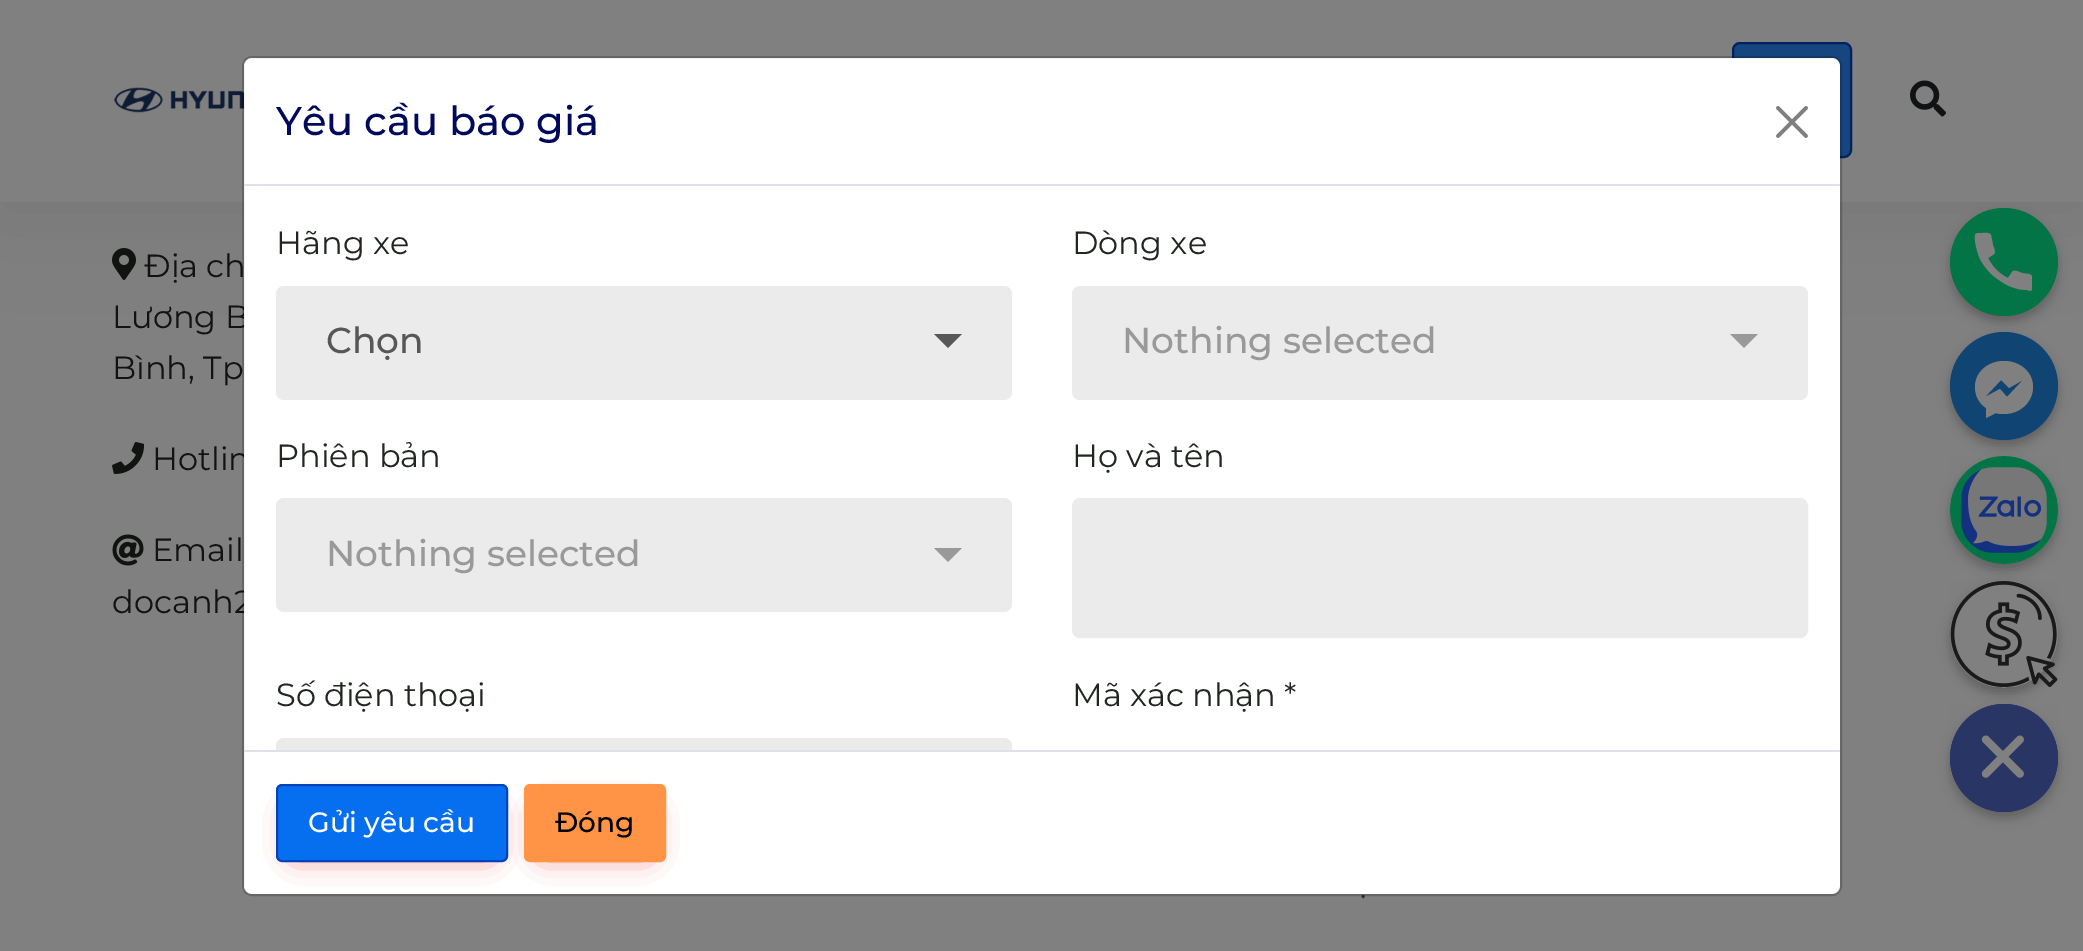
%!PS-Adobe-3.0
%%BoundingBox: 0 0 2083 951
%%LanguageLevel: 3
%%Pages: 1
%%EndComments
%%BeginProlog
/m { moveto } bind def
/l { lineto } bind def
/c { curveto } bind def
/h { closepath } bind def
/f { fill } bind def
/S { stroke } bind def
/q { gsave } bind def
/Q { grestore } bind def
/w { setlinewidth } bind def
/fn { [ exch dup neg 0 0 3 -1 roll 0 0 ] selectfont } def
/tx { moveto show } def
/bx { rectfill } def
/al { dup .setfillconstantalpha .setstrokeconstantalpha } def
/ci { newpath 0 360 arc closepath } def
/rr { 5 dict begin { /r /h /w /y /x } { exch def } forall
  x r add y moveto x w add y 2 copy h add r arct x w add y h add x 1 index r arct
  x y h add x y r arct x y 2 copy exch w add exch r arct closepath end } def
/sh { 12 dict begin { /a /b /q /h /w /y /x } { exch def } forall gsave /was 0 def
  9 -2 -9 { dup b mul 4 div /e exch def 1 sub .425 mul 2.718 exch exp 1 add a .99 .min exch div /now exch def
    1 1 now sub 1 was sub div sub al /was now def
    w h .min e 2 mul add 0 gt { x e sub y e sub w e 2 mul add h e 2 mul add
      q e add b .6 mul add w h .min 2 div e add .min 0 .max rr fill } if } for grestore end } def
/im { 5 dict begin { /h /w /y /x /name } { exch def } forall
  gsave x y translate w h scale
  w h 8 [w 0 0 h 0 0] name (r) file false 3 colorimage grestore end } def
%%EndProlog
%%BeginSetup
<< /PageSize [2083 951] /PageUsesTransparency true >> setpagedevice
%%EndSetup
%%Page: 1 1
0 .pushpdf14devicefilter
0 951 translate 1 -1 scale
4 setmiterlimit
0.502 setgray
0 0 2083 951 bx
(image6.raw) 112 248 24 32 im
0 setgray
0 0 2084 202 0 50 0.1 sh
0.502 setgray
0 0 2083 202 bx
(image0.raw) 114 87 130 26 im
0.086 0.275 0.498 setrgbcolor
1733 43 118 114 7 rr q f Q
0.004 0.129 0.373 setrgbcolor
2 w
S
(image1.raw) 1910 80 36 37 im
/Montserrat-Regular 32 fn
0.067 0.075 0.067 setrgbcolor
(Lương B) 112 328 tx
(Hotlin) 152 470 tx
(docanh2) 112 613 tx
1 setgray
244 58 1596 836 8 rr f
0.067 0.075 0.067 setrgbcolor
(Địa ch) 144 277 tx
/Montserrat-Regular 30 fn
0.176 setgray
(.) 1360 898 tx
0.2 al
0 setgray
243 57 1598 838 9 rr S
1 al
0.871 0.886 0.902 setrgbcolor
244 184 1596 2 bx
/Montserrat-Medium 40 fn
0 0.035 0.357 setrgbcolor
(Yêu cầu báo giá) 276 135 tx
(image2.raw) 1776 106 32 32 im
/Montserrat-Regular 32 fn
0.129 0.149 0.129 setrgbcolor
(Hãng xe) 276 254 tx
0.922 setgray
276 286 736 114 8 rr f
/Montserrat-Medium 36 fn
0.341 setgray
(Chọn) 326 353 tx
934 334 m 962 334 l 948 348 l h f
/Montserrat-Regular 32 fn
0.129 0.149 0.129 setrgbcolor
(Dòng xe) 1072 254 tx
0.922 setgray
1072 286 736 114 8 rr f
/Montserrat-Medium 36 fn
0.6 setgray
(Nothing selected) 1122 353 tx
1730 334 m 1758 334 l 1744 348 l h f
/Montserrat-Regular 32 fn
0.129 0.149 0.129 setrgbcolor
(Phiên bản) 276 467 tx
0.922 setgray
276 498 736 114 8 rr f
/Montserrat-Medium 36 fn
0.6 setgray
(Nothing selected) 326 566 tx
934 548 m 962 548 l 948 562 l h f
/Montserrat-Regular 32 fn
0.129 0.149 0.129 setrgbcolor
(Họ và tên) 1072 467 tx
0.922 setgray
1073 499 734 138 7 rr q f Q
S
0.129 0.149 0.129 setrgbcolor
(Số điện thoại) 276 706 tx
0.922 setgray
284 740 m 1004 740 l 1007.5 740 1010 742.5 1010 746 c 1010 750 l 278 750 l 278 746 l 278 742.5 280.5 740 284 740 c h f
0.871 0.886 0.902 setrgbcolor
244 750 1596 2 bx
q
244 186 1596 564 rectclip
0.922 setgray
277 739 734 138 7 rr S
Q
0.129 0.149 0.129 setrgbcolor
(Mã xác nhận *) 1072 706 tx
0.933 0.192 0.192 setrgbcolor
296 814 192 38 0 15 1 sh
0.024 0.435 0.937 setrgbcolor
277 785 230 76 5 rr q f Q
0.004 0.259 0.741 setrgbcolor
S
/Montserrat-Medium 28 fn
1 setgray
(Gửi yêu cầu) 308 832 tx
0.933 0.192 0.192 setrgbcolor
544 814 102 38 0 15 1 sh
1 0.58 0.275 setrgbcolor
525 785 140 76 5 rr q f Q
S
0 setgray
(Đóng) 555 832 tx
1950 338 108 108 54 6 0.25 sh
0.059 0.267 0.451 setrgbcolor
2004 386 54 ci f
0 setgray
1950 214 108 108 54 6 0.25 sh
0.008 0.455 0.275 setrgbcolor
2004 262 54 ci f
0.502 setgray
2029 274 m 2022 273 l 2019 272 2014 269 2012 272 c 2008 278 l 1999 274 1992 266 1988 258 c 1996 253 1996 254 1993 245 c 1991 235 l 1989 232 1985 233 1982 233 c 1974 233 1975 233 1975 241 c 1976 248 1978 254 1980 259 c 1985 268 1991 275 1999 280 c 2007 286 2017 290 2027 290 c 2029 291 2031 291 2032 290 c 2032 277 l 2032 275 2030 274 2029 274 c h f
1975 387 m 1975 372 1988 361 2004 361 c 2020 361 2033 372 2033 387 c 2033 402 2020 414 2004 414 c 2001 414 1998 414 1996 413 c 1986 418 l 1986 408 l 1979 403 1975 396 1975 387 c h 2000 389 m 2007 397 l 2023 380 l 2009 388 l 2001 380 l 1985 397 l h eofill
0 setgray
1950 462 108 108 54 6 0.25 sh
(image3.raw) 1950 456 108 108 im
q
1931 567 m 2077 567 l 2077 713 l 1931 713 l h 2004 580 m 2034 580 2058 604 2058 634 c 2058 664 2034 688 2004 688 c 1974 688 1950 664 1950 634 c 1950 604 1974 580 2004 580 c h eoclip newpath
1950 586 108 108 54 6 0.25 sh
Q
(image4.raw) 1950 581 108 106 im
1950 710 108 108 54 6 0.25 sh
0.157 0.208 0.396 setrgbcolor
2004 812 m 1974 812 1950 788 1950 758 c 1950 728 1974 704 2004 704 c 2034 704 2058 728 2058 758 c 2058 788 2034 812 2004 812 c h f
(image5.raw) 1950 704 108 108 im
/Montserrat-Regular 32 fn
0.067 0.075 0.067 setrgbcolor
(Bình, Tp) 112 379 tx
(image7.raw) 112 442 33 32 im
(image8.raw) 112 534 32 32 im
(Email) 152 561 tx
.poppdf14devicefilter showpage
%%EOF
